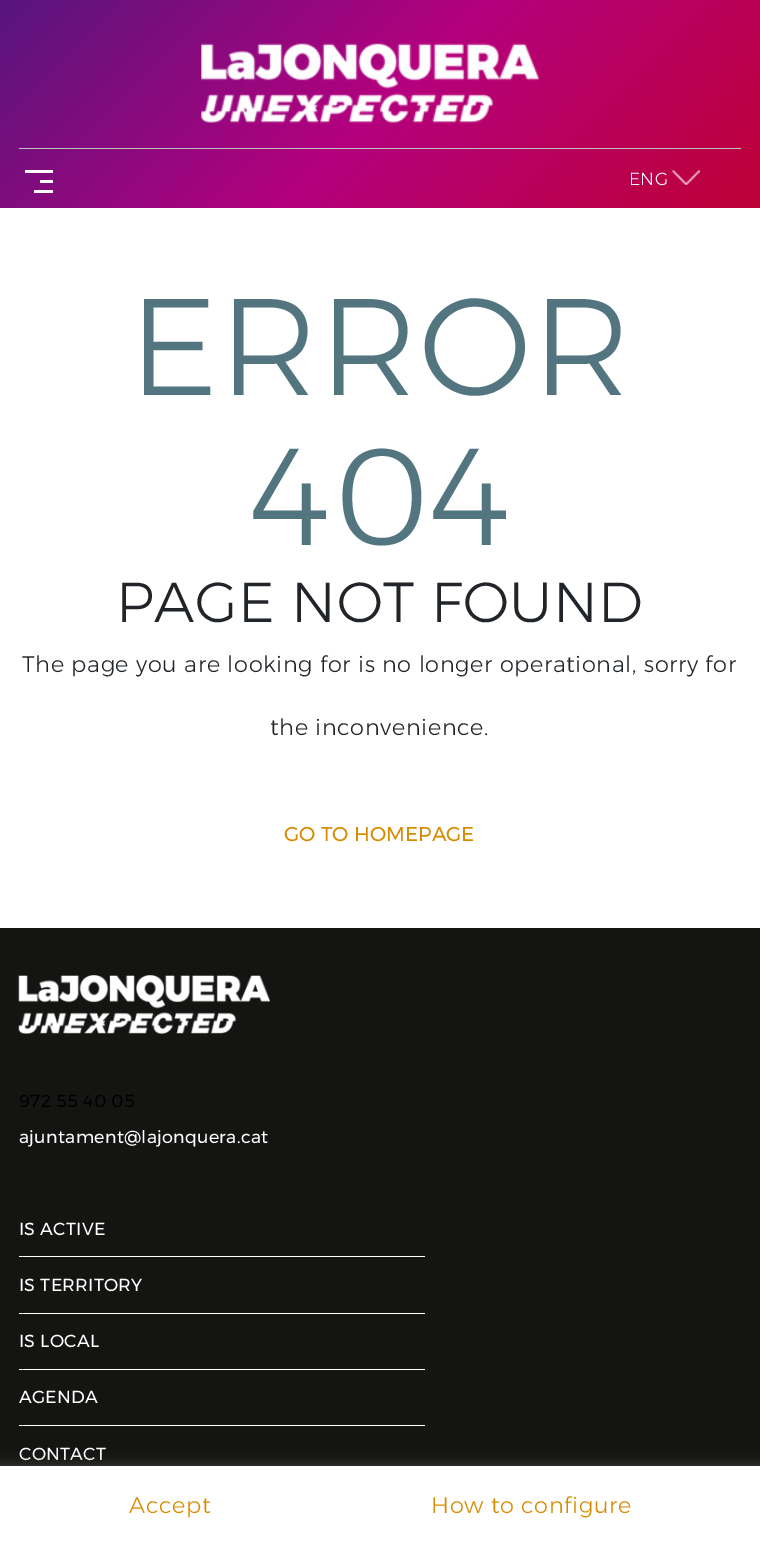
%!PS-Adobe-3.0
%%BoundingBox: 0 0 760 1543
%%LanguageLevel: 3
%%Pages: 1
%%EndComments
%%BeginProlog
/m { moveto } bind def
/l { lineto } bind def
/h { closepath } bind def
/q { gsave } bind def
/Q { grestore } bind def
/fn { [ exch dup neg 0 0 3 -1 roll 0 0 ] selectfont } def
/bx { rectfill } def
/al { dup .setfillconstantalpha .setstrokeconstantalpha } def
/rr { 5 dict begin { /r /h /w /y /x } { exch def } forall
  x r add y moveto x w add y 2 copy h add r arct x w add y h add x 1 index r arct
  x y h add x y r arct x y 2 copy exch w add exch r arct closepath end } def
/sh { 12 dict begin { /a /b /q /h /w /y /x } { exch def } forall gsave /was 0 def
  9 -2 -9 { dup b mul 4 div /e exch def 1 sub .425 mul 2.718 exch exp 1 add a .99 .min exch div /now exch def
    1 1 now sub 1 was sub div sub al /was now def
    w h .min e 2 mul add 0 gt { x e sub y e sub w e 2 mul add h e 2 mul add
      q e add b .6 mul add w h .min 2 div e add .min 0 .max rr fill } if } for grestore end } def
/im { 5 dict begin { /h /w /y /x /name } { exch def } forall
  gsave x y translate w h scale
  w h 8 [w 0 0 h 0 0] name (r) file false 3 colorimage grestore end } def
%%EndProlog
%%BeginSetup
<< /PageSize [760 1543] /PageUsesTransparency true >> setpagedevice
%%EndSetup
%%Page: 1 1
0 .pushpdf14devicefilter
0 1543 translate 1 -1 scale
4 setmiterlimit
1 setgray
0 0 760 1543 bx
q 0 0 m 760 0 l 760 208 l 0 208 l h clip newpath
<< /ShadingType 2 /ColorSpace /DeviceRGB /Coords [138 -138 622 346] /Extend [true true] /Function << /FunctionType 3 /Domain [0 1] /Functions [<< /FunctionType 2 /Domain [0 1] /C0 [0.341 0.086 0.49] /C1 [0.706 0 0.494] /N 1 >> << /FunctionType 2 /Domain [0 1] /C0 [0.706 0 0.494] /C1 [0.745 0 0.212] /N 1 >>] /Bounds [0.5] /Encode [0 1 0 1] >> >> shfill Q
(image0.raw) 201 43 338 80 im
0.741 0.757 0.761 setrgbcolor
19 148 722 1 bx
1 setgray
25 170 28 3 bx
40 180 13 3 bx
34 190 19 3 bx
/Montserrat-Light 17.5 fn
629 185 m 0.1 0 (ENG) ashow
(image1.raw) 672 170 28 15 im
/Montserrat-Light 137.5 fn
0.322 0.459 0.498 setrgbcolor
129 395 m 0.62 0 (ERROR) ashow
250 545 m 0.62 0 (404) ashow
/Montserrat-Light 56.25 fn
0.129 0.145 0.161 setrgbcolor
116 622 m 0.62 0 (PAGE NOT FOUND) ashow
/Montserrat-Light 22.5 fn
22 672 m 0.62 0 (The page you are looking for is no longer operational, sorry for) ashow
270 735 m 0.62 0 (the inconvenience.) ashow
/Montserrat-Regular 20 fn
0.847 0.545 0 setrgbcolor
284 841 m 0.1 0 (GO TO HOMEPAGE) ashow
0.078 0.082 0.075 setrgbcolor
0 928 760 538 bx
(image2.raw) 18 975 252 59 im
/Montserrat-Regular 17.5 fn
0 setgray
19 1107 m 0.3 0 (972 55 40 05) ashow
1 setgray
19 1143 m 0.3 0 (ajuntament@lajonquera.cat) ashow
19 1256 406 1 bx
19 1235 m 0.3 0 (IS ACTIVE) ashow
19 1313 406 1 bx
19 1291 m 0.3 0 (IS TERRITORY) ashow
19 1369 406 1 bx
19 1347 m 0.3 0 (IS LOCAL) ashow
19 1425 406 1 bx
19 1403 m 0.3 0 (AGENDA) ashow
19 1460 m 0.3 0 (CONTACT) ashow
0.267 setgray
0 1466 760 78 0 6 1 sh
1 setgray
0 1466 760 77 bx
/Montserrat-Light 22.5 fn
0.847 0.545 0 setrgbcolor
129 1513 m 0.62 0 (Accept) ashow
431 1513 m 0.62 0 (How to configure) ashow
.poppdf14devicefilter showpage
%%EOF
